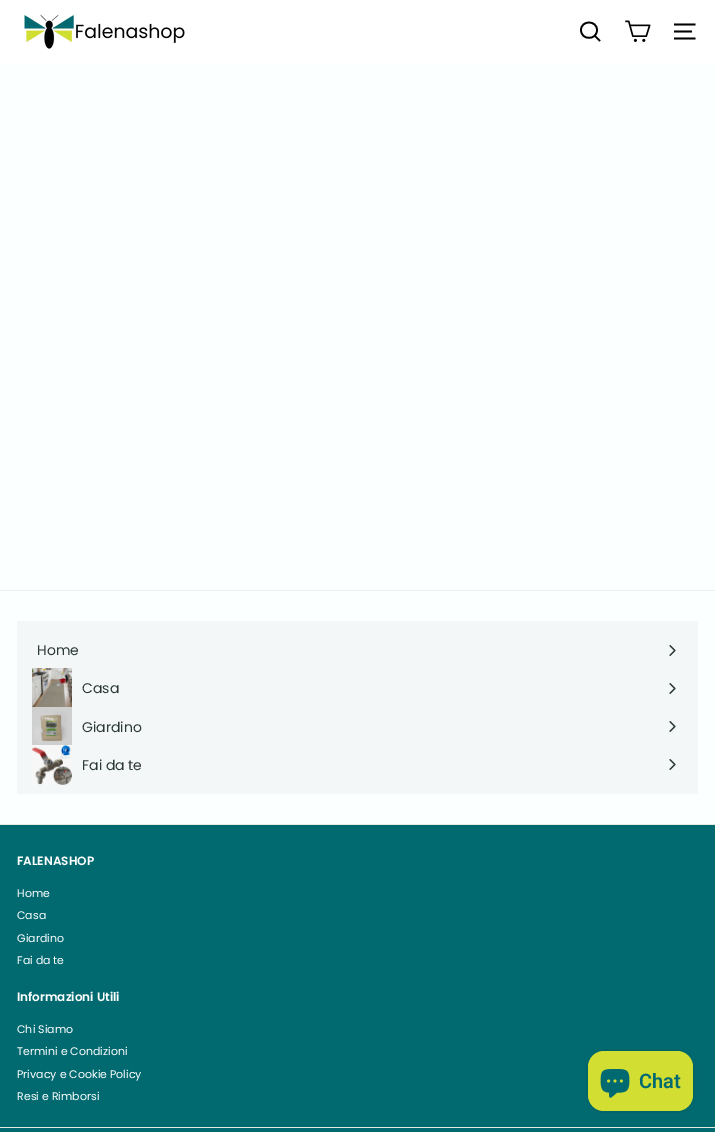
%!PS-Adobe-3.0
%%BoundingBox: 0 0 715 1132
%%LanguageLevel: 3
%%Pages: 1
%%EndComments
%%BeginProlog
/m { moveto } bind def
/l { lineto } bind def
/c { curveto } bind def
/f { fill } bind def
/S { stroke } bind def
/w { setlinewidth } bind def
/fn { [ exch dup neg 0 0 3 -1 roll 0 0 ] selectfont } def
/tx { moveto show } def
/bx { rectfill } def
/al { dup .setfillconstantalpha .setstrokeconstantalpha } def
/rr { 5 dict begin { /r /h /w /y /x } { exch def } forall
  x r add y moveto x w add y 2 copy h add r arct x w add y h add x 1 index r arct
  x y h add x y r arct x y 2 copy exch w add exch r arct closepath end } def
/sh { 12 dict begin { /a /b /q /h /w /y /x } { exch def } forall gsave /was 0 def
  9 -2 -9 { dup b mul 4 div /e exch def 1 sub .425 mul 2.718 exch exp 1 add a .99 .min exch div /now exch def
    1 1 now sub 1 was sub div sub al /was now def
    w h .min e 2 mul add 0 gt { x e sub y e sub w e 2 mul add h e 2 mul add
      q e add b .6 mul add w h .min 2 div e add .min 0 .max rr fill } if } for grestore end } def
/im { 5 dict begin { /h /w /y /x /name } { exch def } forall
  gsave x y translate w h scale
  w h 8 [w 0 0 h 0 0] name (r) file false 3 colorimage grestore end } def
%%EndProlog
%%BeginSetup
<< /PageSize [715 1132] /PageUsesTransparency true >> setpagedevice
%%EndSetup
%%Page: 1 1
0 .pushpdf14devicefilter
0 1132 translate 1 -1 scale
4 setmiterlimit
0.988 1 1 setrgbcolor
0 0 715 1132 bx
1 setgray
0 0 715 63 bx
(image0.raw) 24 14 161 35 im
0 setgray
1.7 w
1 setlinejoin
597 30 m 597 40.5 581 40.5 581 30 c 581 20 597 20 597 30 c 600 41 m 594.5 35.5 l S
(image1.raw) 625 20 26 22 im
674 24.5 m 695.5 24.5 l 674 31.5 m 692 31.5 l 674 38.5 m 695.5 38.5 l S
0.937 setgray
0 590 715 1 bx
(image2.raw) 669 645 7 11 im
(image3.raw) 32 668 40 39 im
(image2.raw) 669 683 7 11 im
(image4.raw) 32 707 40 38 im
(image2.raw) 669 721 7 11 im
(image5.raw) 32 745 40 40 im
(image2.raw) 669 759 7 11 im
0.03 al
0 setgray
17 621 681 173 bx
/Poppins-Regular 14 fn
1 al
0.169 0.227 0.216 setrgbcolor
(Home) 37 655 tx
(Casa) 82 693 tx
(Giardino) 82 732 tx
(Fai da te) 82 770 tx
0.004 0.416 0.439 setrgbcolor
0 825 715 307 bx
0.91 0.91 0.882 setrgbcolor
0 824 715 1 bx
/Poppins-SemiBold 12 fn
1 setgray
(FALENASHOP) 17 865 tx
/Poppins-Regular 11 fn
(Home) 17 897 tx
(Casa) 17 919 tx
(Giardino) 17 942 tx
(Fai da te) 17 964 tx
/Poppins-SemiBold 12 fn
(Informazioni Utili) 17 1001 tx
/Poppins-Regular 11 fn
(Chi Siamo) 17 1033 tx
(Termini e Condizioni) 17 1055 tx
(Privacy e Cookie Policy) 17 1078 tx
(Resi e Rimborsi) 17 1100 tx
0.91 0.91 0.882 setrgbcolor
0 1127 715 1 bx
0 setgray
588 1051 105 60 16 2.5 0.15 sh
0.824 0.871 0.196 setrgbcolor
588 1051 105 60 16 rr f
(image6.raw) 600 1069 30 29 im
/Roboto-SemiBold 20 fn
0.004 0.416 0.439 setrgbcolor
(Chat) 639 1088 tx
.poppdf14devicefilter showpage
%%EOF
